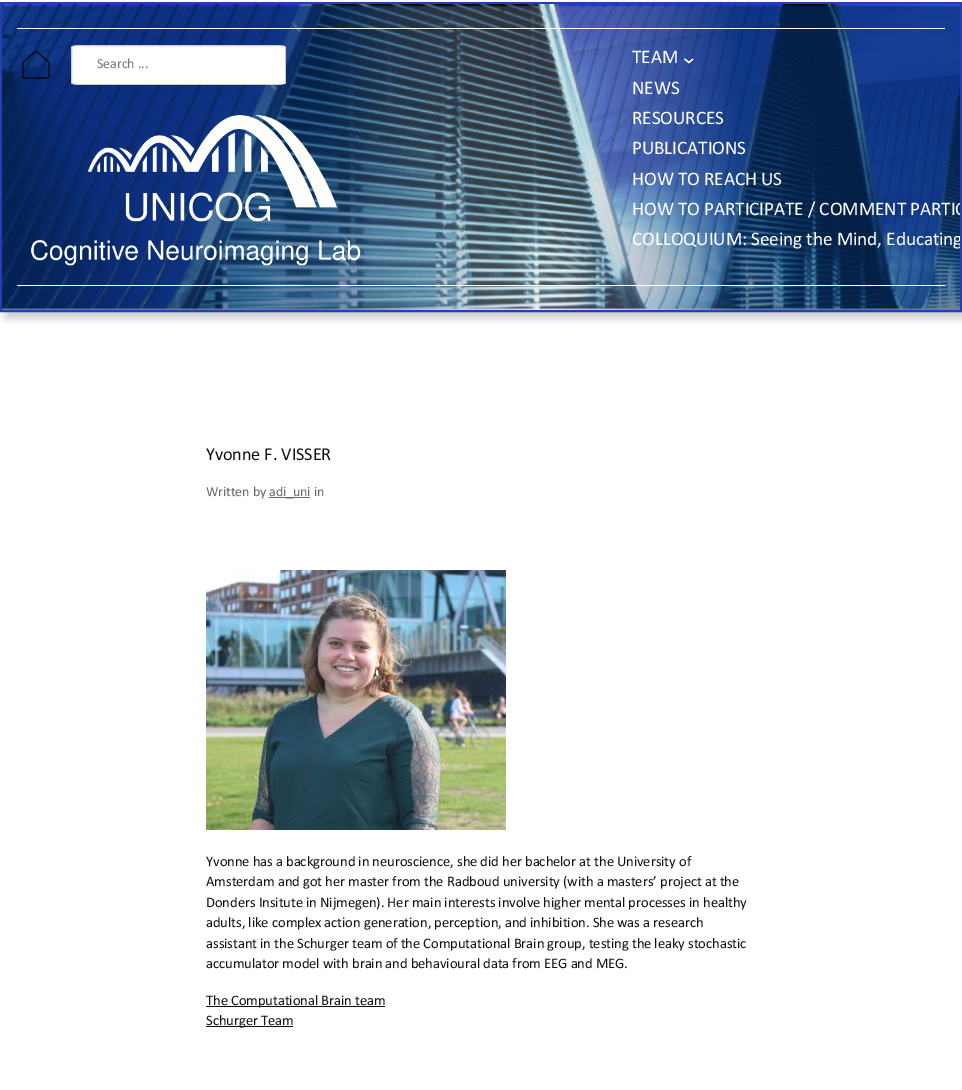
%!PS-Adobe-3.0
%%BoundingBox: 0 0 962 1090
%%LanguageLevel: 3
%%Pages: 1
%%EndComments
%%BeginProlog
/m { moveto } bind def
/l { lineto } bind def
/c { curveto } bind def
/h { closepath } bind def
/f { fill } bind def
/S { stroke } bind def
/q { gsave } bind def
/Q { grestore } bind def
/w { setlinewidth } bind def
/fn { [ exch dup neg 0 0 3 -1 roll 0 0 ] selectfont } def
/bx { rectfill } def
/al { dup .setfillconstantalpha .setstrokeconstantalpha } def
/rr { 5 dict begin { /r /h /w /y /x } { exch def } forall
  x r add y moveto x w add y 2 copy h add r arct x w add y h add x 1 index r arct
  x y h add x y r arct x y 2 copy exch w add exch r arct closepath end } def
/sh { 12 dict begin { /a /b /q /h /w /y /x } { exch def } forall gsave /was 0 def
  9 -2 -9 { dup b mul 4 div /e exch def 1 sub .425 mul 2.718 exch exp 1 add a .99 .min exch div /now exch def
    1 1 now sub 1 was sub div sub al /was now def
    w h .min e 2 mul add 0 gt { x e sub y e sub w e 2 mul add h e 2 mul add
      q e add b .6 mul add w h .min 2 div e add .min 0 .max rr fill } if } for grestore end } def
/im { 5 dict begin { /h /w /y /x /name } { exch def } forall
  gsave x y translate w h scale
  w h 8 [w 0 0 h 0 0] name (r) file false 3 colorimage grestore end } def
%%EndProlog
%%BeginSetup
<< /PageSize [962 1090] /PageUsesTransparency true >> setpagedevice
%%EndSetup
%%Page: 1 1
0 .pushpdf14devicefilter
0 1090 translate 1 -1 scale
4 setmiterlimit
1 setgray
0 0 962 1090 bx
0 setgray
6 8 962 310 0 4.5 0.2 sh
0.153 0.243 0.682 setrgbcolor
2 w
1 3 960 308 rectstroke
(image0.raw) 2 4 958 306 im
1 setgray
17 28 928 1 bx
(image1.raw) 22 50 28 29 im
80 45 m 277 45 l 282 45 286 46 286 47 c 286 83 l 286 84 282 85 277 85 c 80 85 l 75 85 71 84 71 83 c 71 47 l 71 46 75 45 80 45 c h f
0.2 al
0 setgray
1 w
79.5 45.5 m 277.5 45.5 l 282 45.5 285.5 46 285.5 46.5 c 285.5 83.5 l 285.5 84 282 84.5 277.5 84.5 c 79.5 84.5 l 75 84.5 71.5 84 71.5 83.5 c 71.5 46.5 l 71.5 46 75 45.5 79.5 45.5 c h S
/Calibri-Regular 14 fn
1 al
0.459 setgray
97 68 m -0.1 0 (Search ...) ashow
(image2.raw) 31 115 330 151 im
/Calibri-Regular 19.25 fn
1 setgray
632 63 m -0.1 0 (TEAM) ashow
1.4 w
684.5 59 m 689 62.5 l 693 59 l S
632 94 m -0.1 0 (NEWS) ashow
632 124 m -0.1 0 (RESOURCES) ashow
632 154 m -0.1 0 (PUBLICATIONS) ashow
632 185 m -0.1 0 (HOW TO REACH US) ashow
q
2 4 958 306 rectclip
632 215 m -0.1 0 (HOW TO PARTICIPATE / COMMENT PARTIC) ashow
632 245 m -0.1 0 (COLLOQUIUM: Seeing the Mind, Educating) ashow
Q
17 285 928 1 bx
/Calibri-Regular 18.25 fn
0.067 setgray
206 460 m -0.1 0 (Yvonne F. VISSER) ashow
/Calibri-Regular 14 fn
0.408 setgray
206 496 m -0.1 0 (Written by) ashow
269 497 41 1 bx
269 496 m -0.1 0 (adi_uni in) ashow
(image3.raw) 206 570 300 260 im
/Calibri-Regular 14.6 fn
0.067 setgray
206 866 m -0.1 0 (Yvonne has a background in neuroscience, she did her bachelor at the University of) ashow
206 886 m -0.1 0 (Amsterdam and got her master from the Radboud university \(with a masters’ project at the) ashow
206 907 m -0.1 0 (Donders Insitute in Nijmegen\). Her main interests involve higher mental processes in healthy) ashow
206 927 m -0.1 0 (adults, like complex action generation, perception, and inhibition. She was a research) ashow
206 948 m -0.1 0 (assistant in the Schurger team of the Computational Brain group, testing the leaky stochastic) ashow
206 968 m -0.1 0 (accumulator model with brain and behavioural data from EEG and MEG.) ashow
206 1006 179 1 bx
206 1005 m -0.1 0 (The Computational Brain team) ashow
206 1026 87 1 bx
206 1025 m -0.1 0 (Schurger Team) ashow
.poppdf14devicefilter showpage
%%EOF
